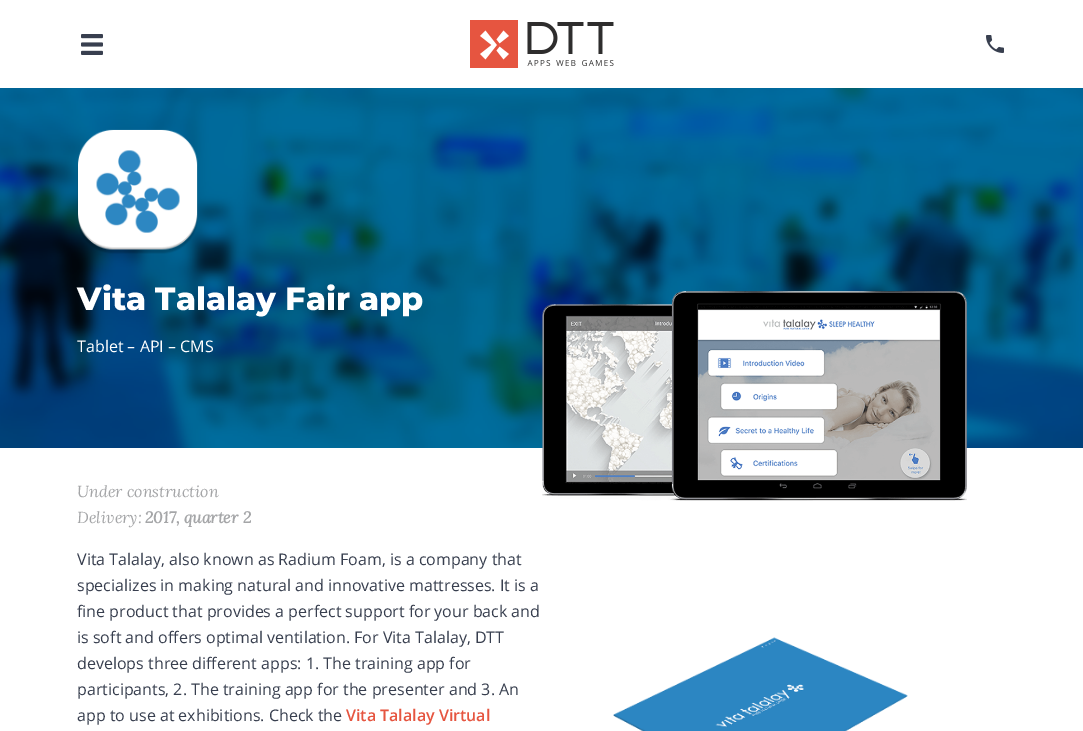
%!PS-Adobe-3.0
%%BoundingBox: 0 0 1083 731
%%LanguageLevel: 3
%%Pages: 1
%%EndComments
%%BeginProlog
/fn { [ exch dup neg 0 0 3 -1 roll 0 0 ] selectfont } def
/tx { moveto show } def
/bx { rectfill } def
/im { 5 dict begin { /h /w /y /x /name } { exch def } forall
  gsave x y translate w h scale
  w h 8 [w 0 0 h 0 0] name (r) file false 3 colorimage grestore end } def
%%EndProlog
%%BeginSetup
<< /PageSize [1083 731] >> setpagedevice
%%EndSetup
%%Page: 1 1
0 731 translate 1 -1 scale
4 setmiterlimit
1 setgray
0 0 1083 731 bx
(image0.raw) 81 34 22 21 im
(image1.raw) 470 20 144 48 im
(image2.raw) 986 35 18 18 im
(image3.raw) 0 88 1083 360 im
(image4.raw) 77 129 121 125 im
/Montserrat-ExtraBold 32 fn
(Vita Talalay Fair app) 77 310 tx
/OpenSans-Regular 16 fn
(Tablet – API – CMS) 77 352 tx
(image5.raw) 542 291 425 210 im
/Lora-Italic 16 fn
0.647 0.651 0.659 setrgbcolor
(Under construction) 77 497 tx
(Delivery:) 77 523 tx
/Lora-BoldItalic 16 fn
(2017, quarter 2) 145 523 tx
/OpenSans-Regular 16 fn
0.22 0.247 0.31 setrgbcolor
(Vita Talalay, also known as Radium Foam, is a company that) 77 565 tx
(specializes in making natural and innovative mattresses. It is a) 77 591 tx
(fine product that provides a perfect support for your back and) 77 617 tx
(is soft and offers optimal ventilation. For Vita Talalay, DTT) 77 643 tx
(develops three different apps: 1. The training app for) 77 669 tx
(participants, 2. The training app for the presenter and 3. An) 77 695 tx
(app to use at exhibitions. Check the) 77 721 tx
/OpenSans-SemiBold 16 fn
0.902 0.333 0.251 setrgbcolor
(Vita Talalay Virtual) 346 721 tx
(image6.raw) 613 637 295 94 im
showpage
%%EOF
